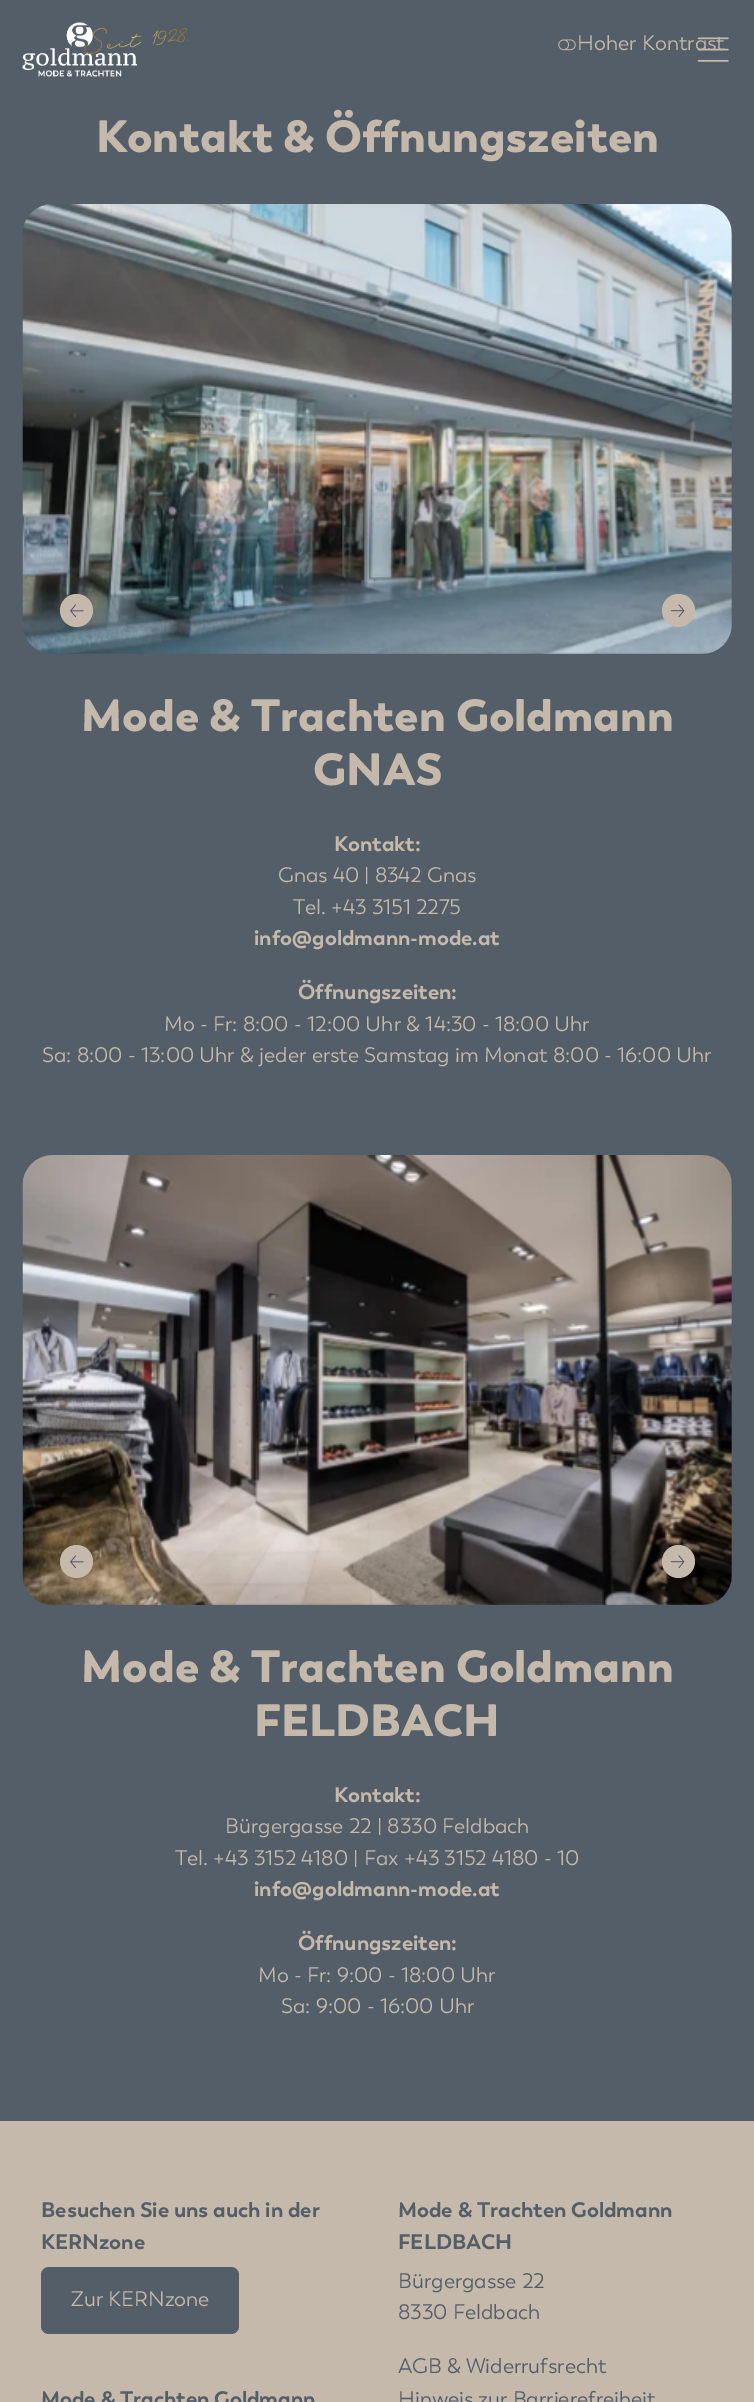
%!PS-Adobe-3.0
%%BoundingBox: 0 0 754 2402
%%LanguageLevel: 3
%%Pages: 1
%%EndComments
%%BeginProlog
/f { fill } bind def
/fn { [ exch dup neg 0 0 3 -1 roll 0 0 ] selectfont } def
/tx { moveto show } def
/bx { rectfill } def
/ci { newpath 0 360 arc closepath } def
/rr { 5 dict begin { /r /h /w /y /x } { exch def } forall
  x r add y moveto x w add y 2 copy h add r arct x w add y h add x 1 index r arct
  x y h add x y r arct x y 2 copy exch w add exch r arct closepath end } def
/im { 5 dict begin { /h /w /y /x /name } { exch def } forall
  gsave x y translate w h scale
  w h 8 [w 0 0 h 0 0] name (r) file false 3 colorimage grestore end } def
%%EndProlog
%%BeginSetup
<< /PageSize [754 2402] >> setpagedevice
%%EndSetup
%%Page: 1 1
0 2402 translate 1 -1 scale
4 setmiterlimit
0.325 0.369 0.412 setrgbcolor
0 0 754 2402 bx
(image0.raw) 22 22 166 55 im
(image1.raw) 697 37 32 25 im
(image2.raw) 558 39 18 12 im
/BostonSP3-Regular 21 fn
0.773 0.725 0.671 setrgbcolor
(Hoher Kontrast) 577 50 tx
/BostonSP-Regular 45 fn
(Kontakt & Öffnungszeiten) 96 152 tx
(image3.raw) 22 204 710 450 im
76.5 610.5 16.5 ci f
(image4.raw) 70 604 14 14 im
678.5 610.5 16.5 ci f
(image5.raw) 670 604 15 13 im
(Mode & Trachten Goldmann) 81 731 tx
(GNAS) 313 785 tx
/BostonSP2-Regular 21 fn
(Kontakt:) 334 851 tx
/BostonSP3-Regular 21 fn
(Gnas 40 | 8342 Gnas) 278 882 tx
(Tel. +43 3151 2275) 293 914 tx
/BostonSP2-Regular 21 fn
(info@goldmann-mode.at) 254 945 tx
(Öffnungszeiten:) 298 999 tx
/BostonSP3-Regular 21 fn
(Mo - Fr: 8:00 - 12:00 Uhr & 14:30 - 18:00 Uhr) 164 1031 tx
(Sa: 8:00 - 13:00 Uhr & jeder erste Samstag im Monat 8:00 - 16:00 Uhr) 42 1062 tx
(image6.raw) 22 1155 710 450 im
76.5 1561.5 16.5 ci f
(image4.raw) 70 1555 14 14 im
678.5 1561.5 16.5 ci f
(image5.raw) 670 1555 15 13 im
/BostonSP-Regular 45 fn
(Mode & Trachten Goldmann) 81 1682 tx
(FELDBACH) 254 1736 tx
/BostonSP2-Regular 21 fn
(Kontakt:) 334 1802 tx
/BostonSP3-Regular 21 fn
(Bürgergasse 22 | 8330 Feldbach) 225 1833 tx
(Tel. +43 3152 4180 | Fax +43 3152 4180 - 10) 175 1865 tx
/BostonSP2-Regular 21 fn
(info@goldmann-mode.at) 254 1896 tx
(Öffnungszeiten:) 298 1950 tx
/BostonSP3-Regular 21 fn
(Mo - Fr: 9:00 - 18:00 Uhr) 258 1982 tx
(Sa: 9:00 - 16:00 Uhr) 281 2013 tx
0 2121 754 281 bx
/BostonSP2-Regular 21 fn
0.325 0.369 0.412 setrgbcolor
(Besuchen Sie uns auch in der) 41 2217 tx
(KERNzone) 41 2249 tx
41 2267 198 67 8 rr f
/BostonSP3-Regular 21 fn
0.773 0.725 0.671 setrgbcolor
(Zur KERNzone) 71 2306 tx
/BostonSP2-Regular 21 fn
0.325 0.369 0.412 setrgbcolor
(Mode & Trachten Goldmann) 398 2217 tx
(FELDBACH) 398 2249 tx
/BostonSP3-Regular 21 fn
(Bürgergasse 22) 398 2288 tx
(8330 Feldbach) 398 2319 tx
/BostonSP2-Regular 21 fn
(Mode & Trachten Goldmann) 41 2406 tx
/BostonSP3-Regular 21 fn
(AGB & Widerrufsrecht) 398 2373 tx
(Hinweis zur Barrierefreiheit) 398 2406 tx
showpage
%%EOF
